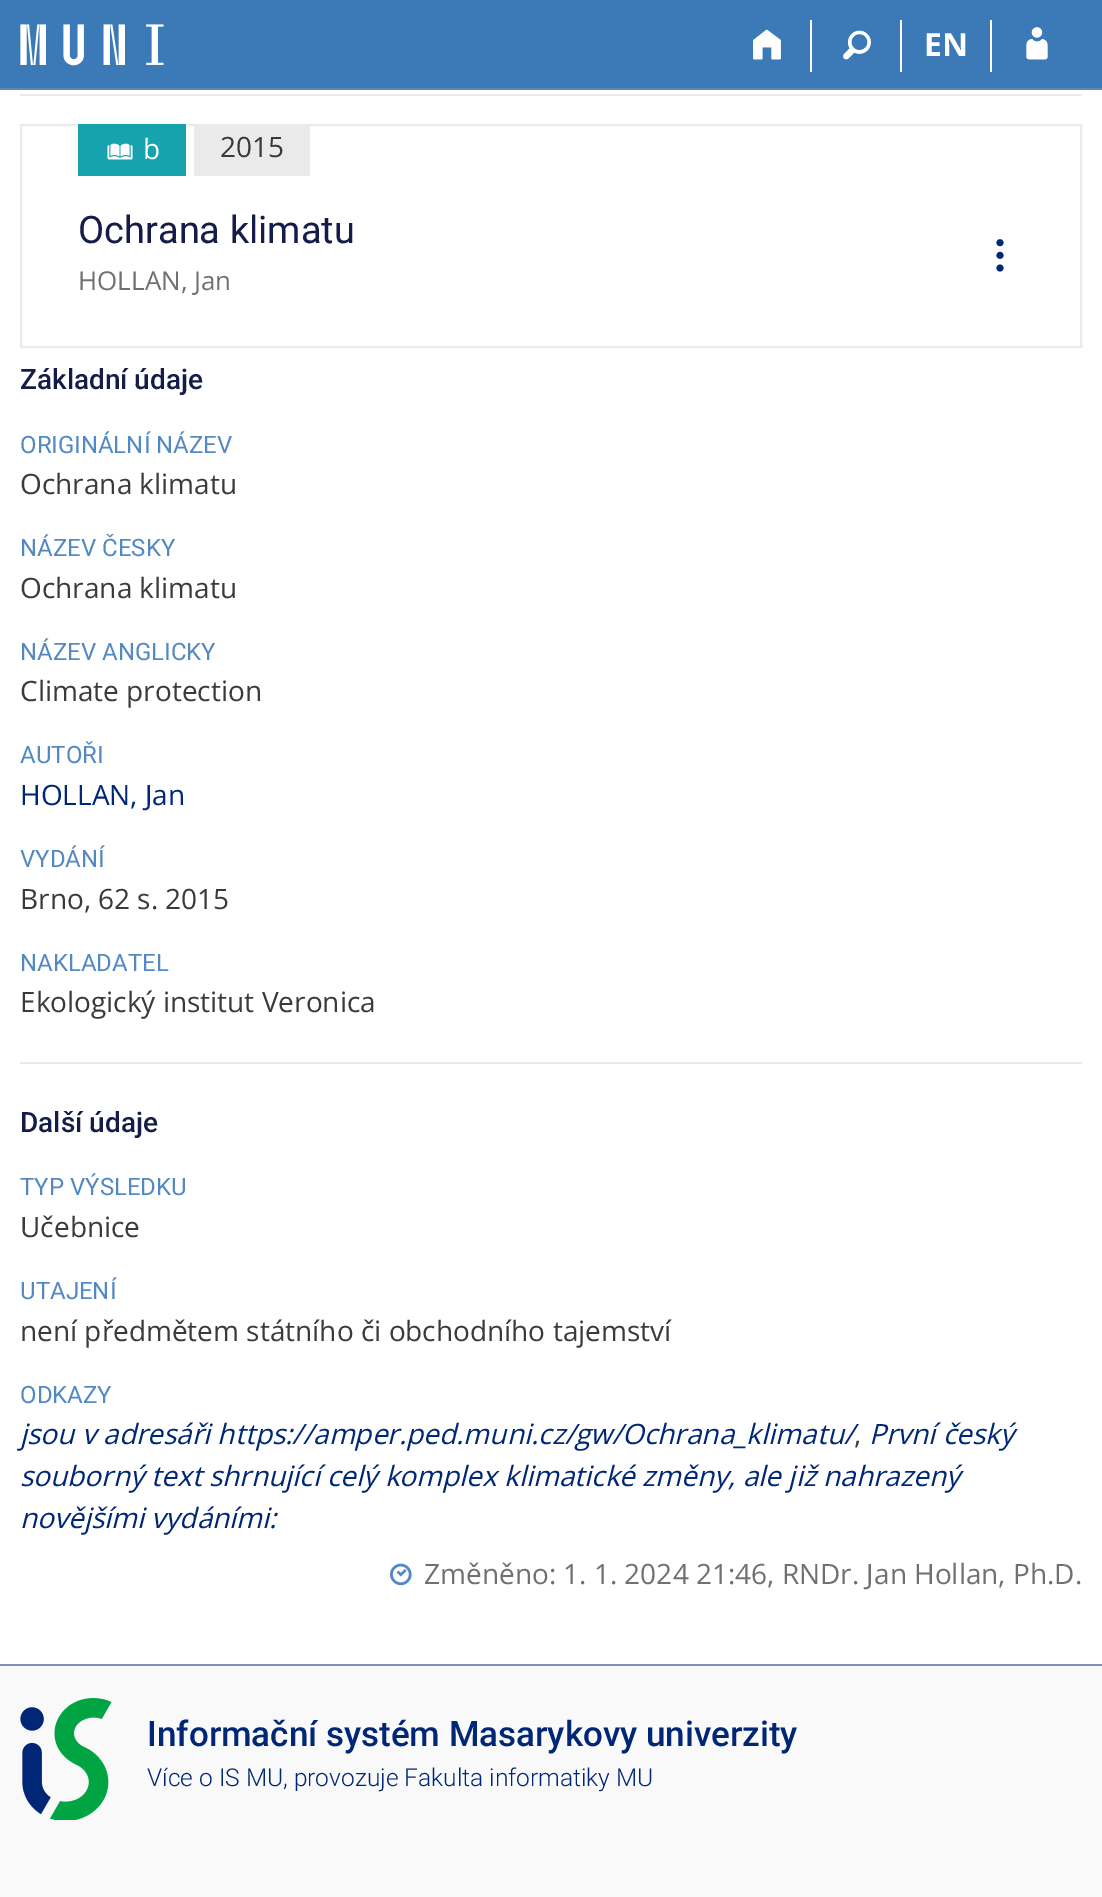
%!PS-Adobe-3.0
%%BoundingBox: 0 0 1102 1897
%%LanguageLevel: 3
%%Pages: 1
%%EndComments
%%BeginProlog
/w { setlinewidth } bind def
/fn { [ exch dup neg 0 0 3 -1 roll 0 0 ] selectfont } def
/tx { moveto show } def
/bx { rectfill } def
/im { 5 dict begin { /h /w /y /x /name } { exch def } forall
  gsave x y translate w h scale
  w h 8 [w 0 0 h 0 0] name (r) file false 3 colorimage grestore end } def
%%EndProlog
%%BeginSetup
<< /PageSize [1102 1897] >> setpagedevice
%%EndSetup
%%Page: 1 1
0 1897 translate 1 -1 scale
4 setmiterlimit
1 setgray
0 0 1102 1897 bx
0.235 0.478 0.718 setrgbcolor
0 0 1102 88 bx
0.361 0.533 0.714 setrgbcolor
0 88 1102 2 bx
(image0.raw) 20 24 144 42 im
1 setgray
810 20 2 52 bx
(image1.raw) 753 29 28 31 im
900 20 2 52 bx
(image2.raw) 843 30 28 30 im
990 20 2 52 bx
/OpenSans-Bold 32 fn
(EN) 924 56 tx
(image3.raw) 1026 27 22 33 im
0.918 setgray
20 94 1062 2 bx
2 w
21 125 1060 222 rectstroke
0.086 0.639 0.682 setrgbcolor
78 124 108 52 bx
(image4.raw) 107 143 26 17 im
/OpenSans-Regular 28 fn
1 setgray
(b) 143 159 tx
0.918 setgray
194 126 116 50 bx
0.227 setgray
(2015) 220 157 tx
/Roboto-Regular 38 fn
0.078 0.11 0.29 setrgbcolor
(Ochrana klimatu) 78 243 tx
/OpenSans-Regular 26 fn
0.439 setgray
(HOLLAN, Jan) 78 290 tx
(image5.raw) 996 239 8 33 im
/Roboto-Medium 28 fn
0.078 0.11 0.29 setrgbcolor
(Základní údaje) 20 389 tx
/Roboto-Regular 24 fn
0.325 0.537 0.761 setrgbcolor
(ORIGINÁLNÍ NÁZEV) 20 453 tx
/OpenSans-Regular 28 fn
0.227 setgray
(Ochrana klimatu) 20 494 tx
/Roboto-Regular 24 fn
0.325 0.537 0.761 setrgbcolor
(NÁZEV ČESKY) 20 556 tx
/OpenSans-Regular 28 fn
0.227 setgray
(Ochrana klimatu) 20 598 tx
/Roboto-Regular 24 fn
0.325 0.537 0.761 setrgbcolor
(NÁZEV ANGLICKY) 20 660 tx
/OpenSans-Regular 28 fn
0.227 setgray
(Climate protection) 20 701 tx
/Roboto-Regular 24 fn
0.325 0.537 0.761 setrgbcolor
(AUTOŘI) 20 763 tx
/OpenSans-Regular 28 fn
0 0.153 0.463 setrgbcolor
(HOLLAN, Jan) 20 805 tx
/Roboto-Regular 24 fn
0.325 0.537 0.761 setrgbcolor
(VYDÁNÍ) 20 867 tx
/OpenSans-Regular 28 fn
0.227 setgray
(Brno, 62 s. 2015) 20 909 tx
/Roboto-Regular 24 fn
0.325 0.537 0.761 setrgbcolor
(NAKLADATEL) 20 971 tx
/OpenSans-Regular 28 fn
0.227 setgray
(Ekologický institut Veronica) 20 1012 tx
0.918 setgray
20 1062 1062 2 bx
/Roboto-Medium 28 fn
0.078 0.11 0.29 setrgbcolor
(Další údaje) 20 1132 tx
/Roboto-Regular 24 fn
0.325 0.537 0.761 setrgbcolor
(TYP VÝSLEDKU) 20 1195 tx
/OpenSans-Regular 28 fn
0.227 setgray
(Učebnice) 20 1237 tx
/Roboto-Regular 24 fn
0.325 0.537 0.761 setrgbcolor
(UTAJENÍ) 20 1299 tx
/OpenSans-Regular 28 fn
0.227 setgray
(není předmětem státního či obchodního tajemství) 20 1341 tx
/Roboto-Regular 24 fn
0.325 0.537 0.761 setrgbcolor
(ODKAZY) 20 1403 tx
/OpenSans-Italic 28 fn
0 0.153 0.463 setrgbcolor
(jsou v adresáři https://amper.ped.muni.cz/gw/Ochrana_klimatu/) 20 1444 tx
(První český) 869 1444 tx
/OpenSans-Regular 28 fn
0.227 setgray
(,) 854 1444 tx
/OpenSans-Italic 28 fn
0 0.153 0.463 setrgbcolor
(souborný text shrnující celý komplex klimatické změny, ale již nahrazený) 20 1486 tx
(novějšími vydáními:) 20 1528 tx
(image6.raw) 390 1563 22 23 im
/OpenSans-Regular 28 fn
0.439 setgray
(Změněno: 1. 1. 2024 21:46, RNDr. Jan Hollan, Ph.D.) 424 1584 tx
0.976 setgray
0 1666 1102 231 bx
0.49 0.565 0.722 setrgbcolor
0 1664 1102 2 bx
(image7.raw) 20 1698 92 122 im
/Roboto-Medium 35 fn
0 0.153 0.463 setrgbcolor
(Informační systém Masarykovy univerzity) 147 1746 tx
/Roboto-Light 24.5 fn
(Více o IS MU, provozuje Fakulta informatiky MU) 147 1786 tx
showpage
%%EOF
